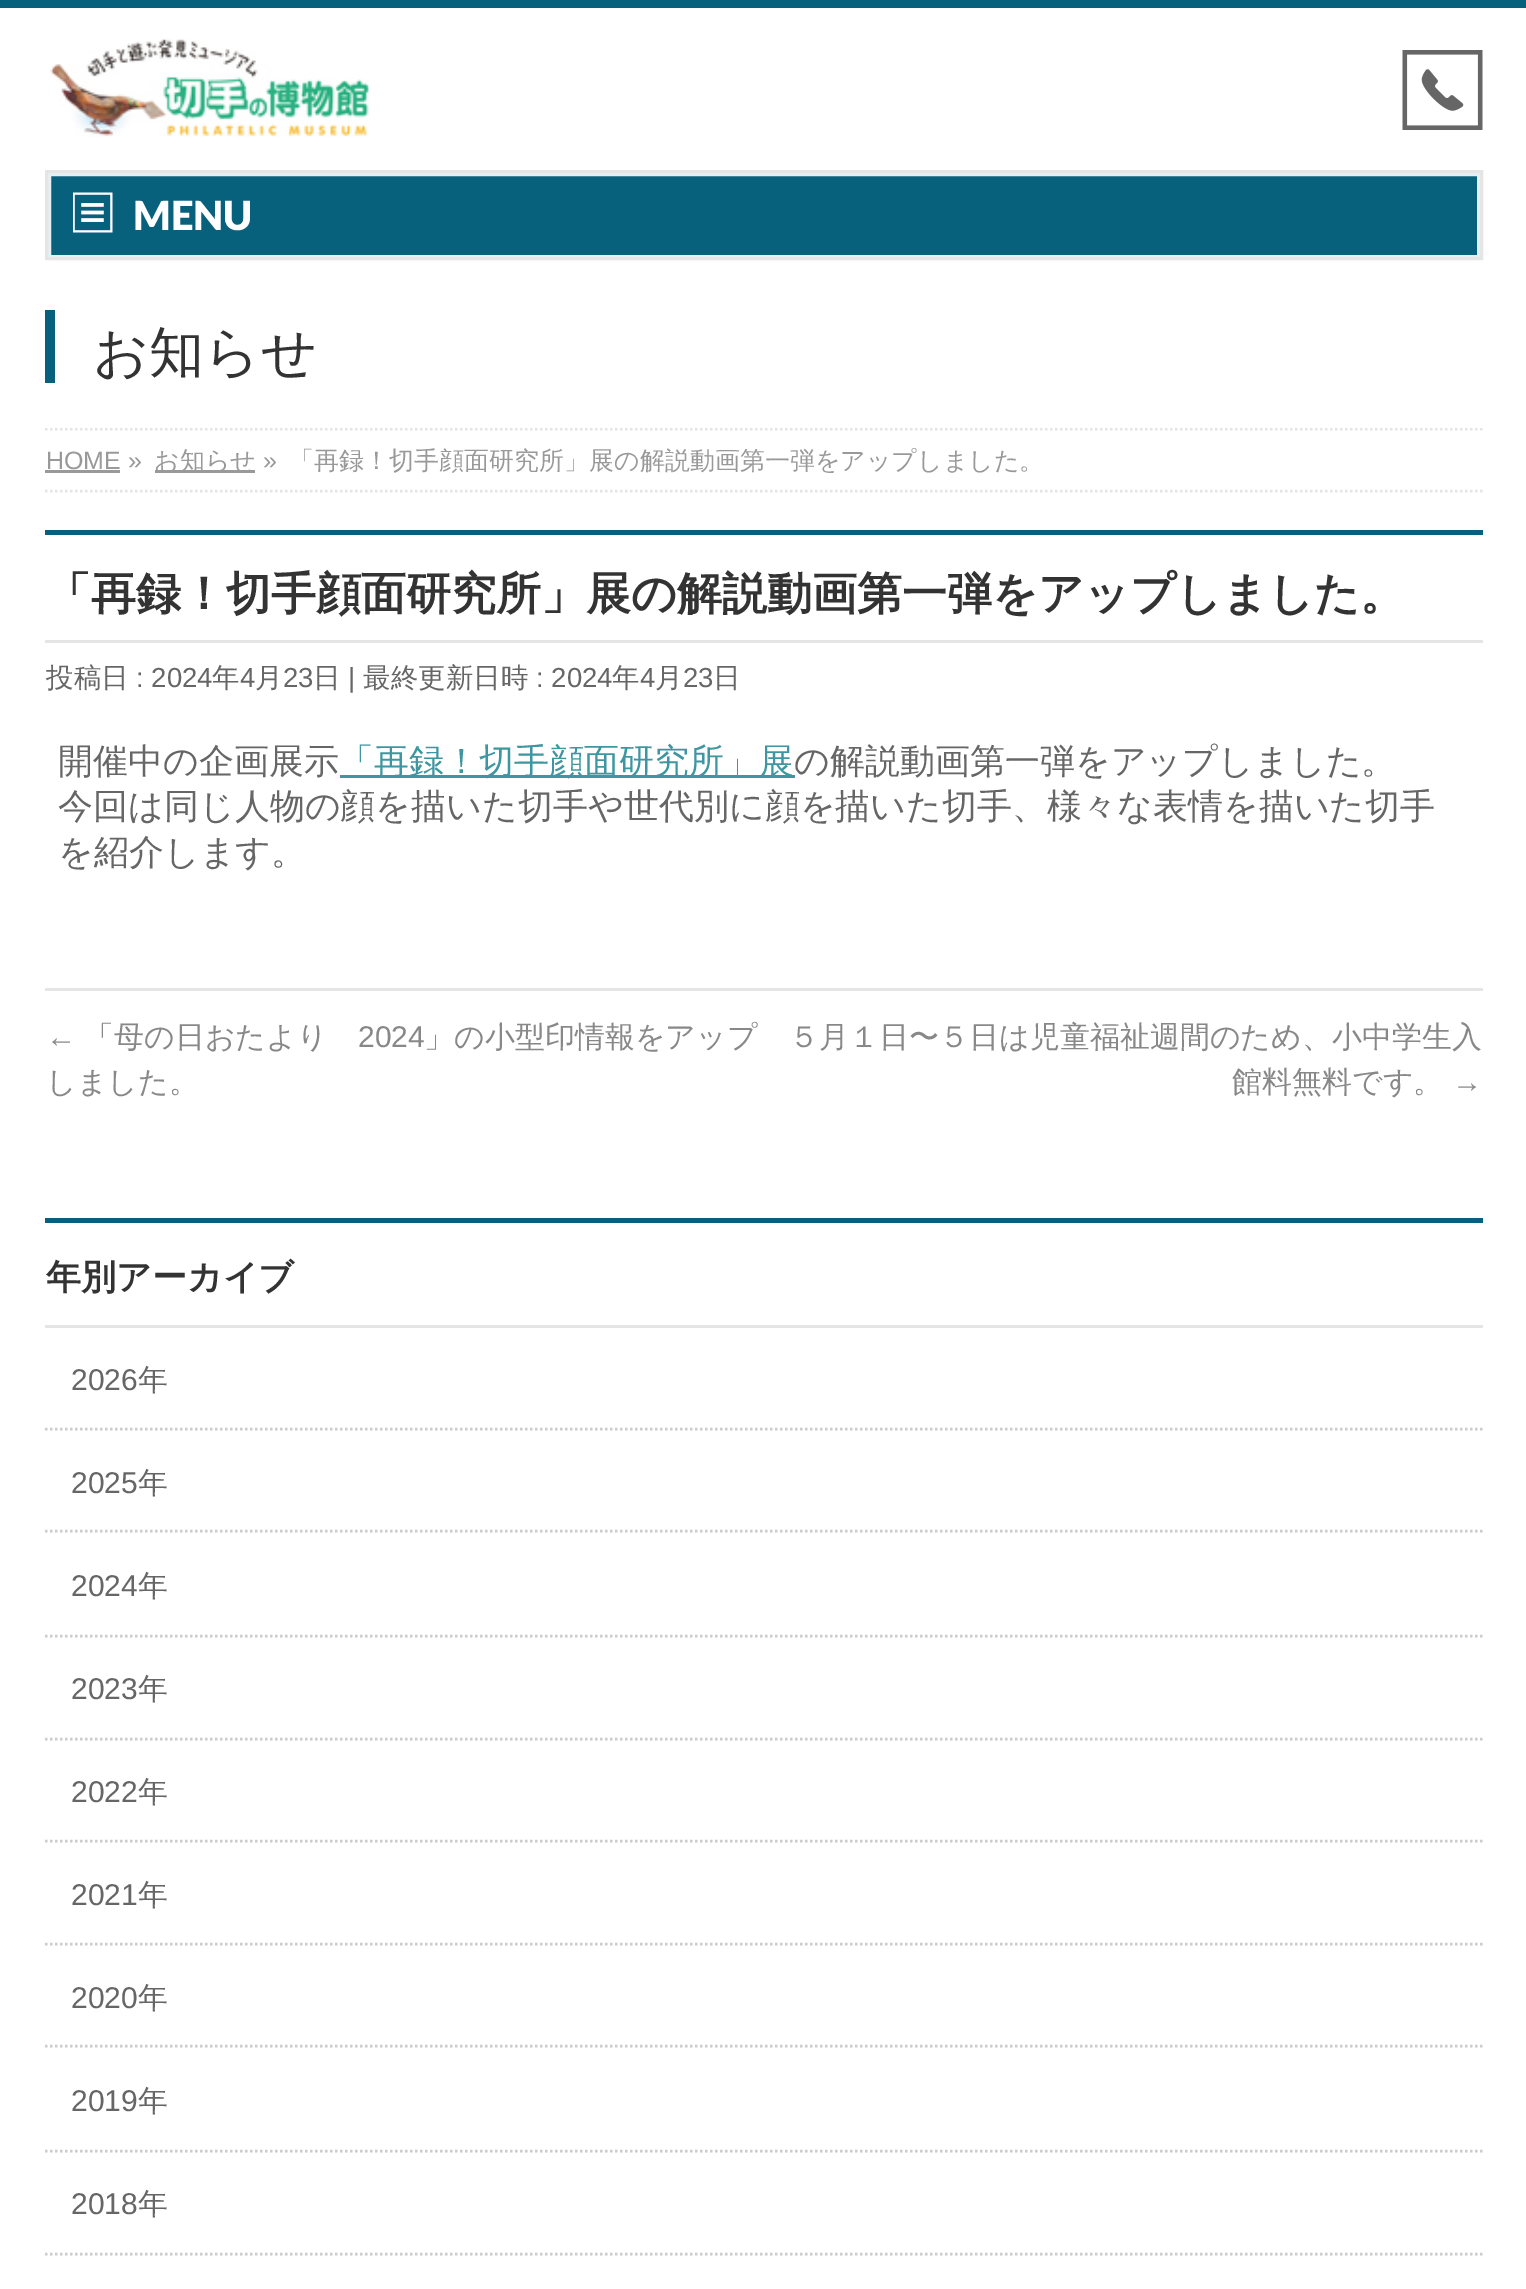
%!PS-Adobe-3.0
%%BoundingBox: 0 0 1526 2289
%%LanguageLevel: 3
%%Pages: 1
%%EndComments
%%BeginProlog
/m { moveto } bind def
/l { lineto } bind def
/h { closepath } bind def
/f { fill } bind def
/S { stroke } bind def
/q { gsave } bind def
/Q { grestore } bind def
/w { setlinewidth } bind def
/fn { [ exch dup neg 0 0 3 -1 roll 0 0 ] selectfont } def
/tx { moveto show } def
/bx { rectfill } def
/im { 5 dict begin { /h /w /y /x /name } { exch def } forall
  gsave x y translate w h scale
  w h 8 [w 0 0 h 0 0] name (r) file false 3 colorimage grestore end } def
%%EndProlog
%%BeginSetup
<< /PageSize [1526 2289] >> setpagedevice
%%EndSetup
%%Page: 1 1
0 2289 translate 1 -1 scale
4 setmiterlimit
1 setgray
0 0 1526 2289 bx
0.031 0.38 0.486 setrgbcolor
0 0 1526 8 bx
(image0.raw) 50 39 320 98 im
(image1.raw) 1402 50 81 80 im
49.5 174.5 m 1478.5 174.5 l 1478.5 256.5 l 49.5 256.5 l h q f Q
0.902 0.937 0.949 setrgbcolor
3 w
S
0.898 setgray
46.5 171.5 1435 87 rectstroke
(image2.raw) 73 192 40 41 im
/Lato-Black 40 fn
1 setgray
(MENU) 133 230 tx
0.031 0.38 0.486 setrgbcolor
45 310 10 73 bx
/WenQuanYiZenHei-Medium 55 fn
0.2 setgray
(お知らせ) 93 371 tx
q
0 428 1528 65 rectclip
0.898 setgray
2.5 w
[2.5 2.5] 0 setdash
45 429 m 1482.5 429 l S
Q
0.898 setgray
2.5 w
[2.5 2.5] 0 setdash
45 491 m 1482.5 491 l S
/LiberationSans-Regular 25 fn
0.6 setgray
(HOME ») 46 469 tx
45 470 75 3 bx
155 470 100 3 bx
/WenQuanYiZenHei-Medium 25 fn
(お知らせ) 154 469 tx
/LiberationSans-Regular 25 fn
(») 263 469 tx
/WenQuanYiZenHei-Medium 25 fn
(「再録！切手顔面研究所」展の解説動画第一弾をアップしました。) 289 469 tx
0.031 0.38 0.486 setrgbcolor
45 530 1438 5 bx
0.898 setgray
45 640 1438 3 bx
/WenQuanYiZenHei-Bold 45 fn
0.2 setgray
(「再録！切手顔面研究所」展の解説動画第一弾をアップしました。) 46 609 tx
/WenQuanYiZenHei-Medium 27.5 fn
0.4 setgray
(投稿日) 46 687 tx
/LiberationSans-Regular 27.5 fn
(: 2024) 136 687 tx
/WenQuanYiZenHei-Medium 27.5 fn
(年) 212 687 tx
/LiberationSans-Regular 27.5 fn
(4) 240 687 tx
/WenQuanYiZenHei-Medium 27.5 fn
(月) 255 687 tx
/LiberationSans-Regular 27.5 fn
(23) 283 687 tx
/WenQuanYiZenHei-Medium 27.5 fn
(日) 313 687 tx
/LiberationSans-Regular 27.5 fn
(|) 348 687 tx
/WenQuanYiZenHei-Medium 27.5 fn
(最終更新日時) 363 687 tx
/LiberationSans-Regular 27.5 fn
(: 2024) 536 687 tx
/WenQuanYiZenHei-Medium 27.5 fn
(年) 612 687 tx
/LiberationSans-Regular 27.5 fn
(4) 640 687 tx
/WenQuanYiZenHei-Medium 27.5 fn
(月) 655 687 tx
/LiberationSans-Regular 27.5 fn
(23) 683 687 tx
/WenQuanYiZenHei-Medium 27.5 fn
(日) 713 687 tx
/WenQuanYiZenHei-Medium 35 fn
(開催中の企画展示) 58 773 tx
0.239 0.588 0.627 setrgbcolor
340 775 455 3 bx
(「再録！切手顔面研究所」展) 339 773 tx
0.4 setgray
(の解説動画第一弾をアップしました。) 794 773 tx
(今回は同じ人物の顔を描いた切手や世代別に顔を描いた切手、様々な表情を描いた切手) 58 818 tx
(を紹介します。) 58 864 tx
0.898 setgray
45 988 1438 3 bx
/LiberationSans-Regular 30 fn
0.533 setgray
(←) 46 1047 tx
/WenQuanYiZenHei-Medium 30 fn
(「母の日おたより) 84 1047 tx
/LiberationSans-Regular 30 fn
(2024) 358 1047 tx
/WenQuanYiZenHei-Medium 30 fn
(」の小型印情報をアップ) 424 1047 tx
(しました。) 46 1092 tx
(５月１日〜５日は児童福祉週間のため、小中学生入) 789 1047 tx
(館料無料です。) 1232 1092 tx
/LiberationSans-Regular 30 fn
(→) 1452 1092 tx
0.031 0.38 0.486 setrgbcolor
45 1218 1438 5 bx
0.898 setgray
45 1325 1438 3 bx
/WenQuanYiZenHei-Bold 35 fn
0.2 setgray
(年別アーカイブ) 46 1289 tx
0.8 setgray
45 1429 m 1482.5 1429 l S
/LiberationSans-Regular 30 fn
0.4 setgray
(2026) 71 1390 tx
/WenQuanYiZenHei-Medium 30 fn
(年) 138 1390 tx
0.8 setgray
45 1531 m 1482.5 1531 l S
/LiberationSans-Regular 30 fn
0.4 setgray
(2025) 71 1493 tx
/WenQuanYiZenHei-Medium 30 fn
(年) 138 1493 tx
0.8 setgray
45 1636 m 1482.5 1636 l S
/LiberationSans-Regular 30 fn
0.4 setgray
(2024) 71 1596 tx
/WenQuanYiZenHei-Medium 30 fn
(年) 138 1596 tx
0.8 setgray
45 1739 m 1482.5 1739 l S
/LiberationSans-Regular 30 fn
0.4 setgray
(2023) 71 1699 tx
/WenQuanYiZenHei-Medium 30 fn
(年) 138 1699 tx
0.8 setgray
45 1841 m 1482.5 1841 l S
/LiberationSans-Regular 30 fn
0.4 setgray
(2022) 71 1802 tx
/WenQuanYiZenHei-Medium 30 fn
(年) 138 1802 tx
0.8 setgray
45 1944 m 1482.5 1944 l S
/LiberationSans-Regular 30 fn
0.4 setgray
(2021) 71 1905 tx
/WenQuanYiZenHei-Medium 30 fn
(年) 138 1905 tx
0.8 setgray
45 2046 m 1482.5 2046 l S
/LiberationSans-Regular 30 fn
0.4 setgray
(2020) 71 2008 tx
/WenQuanYiZenHei-Medium 30 fn
(年) 138 2008 tx
0.8 setgray
45 2151 m 1482.5 2151 l S
/LiberationSans-Regular 30 fn
0.4 setgray
(2019) 71 2111 tx
/WenQuanYiZenHei-Medium 30 fn
(年) 138 2111 tx
0.8 setgray
45 2254 m 1482.5 2254 l S
/LiberationSans-Regular 30 fn
0.4 setgray
(2018) 71 2214 tx
/WenQuanYiZenHei-Medium 30 fn
(年) 138 2214 tx
showpage
%%EOF
